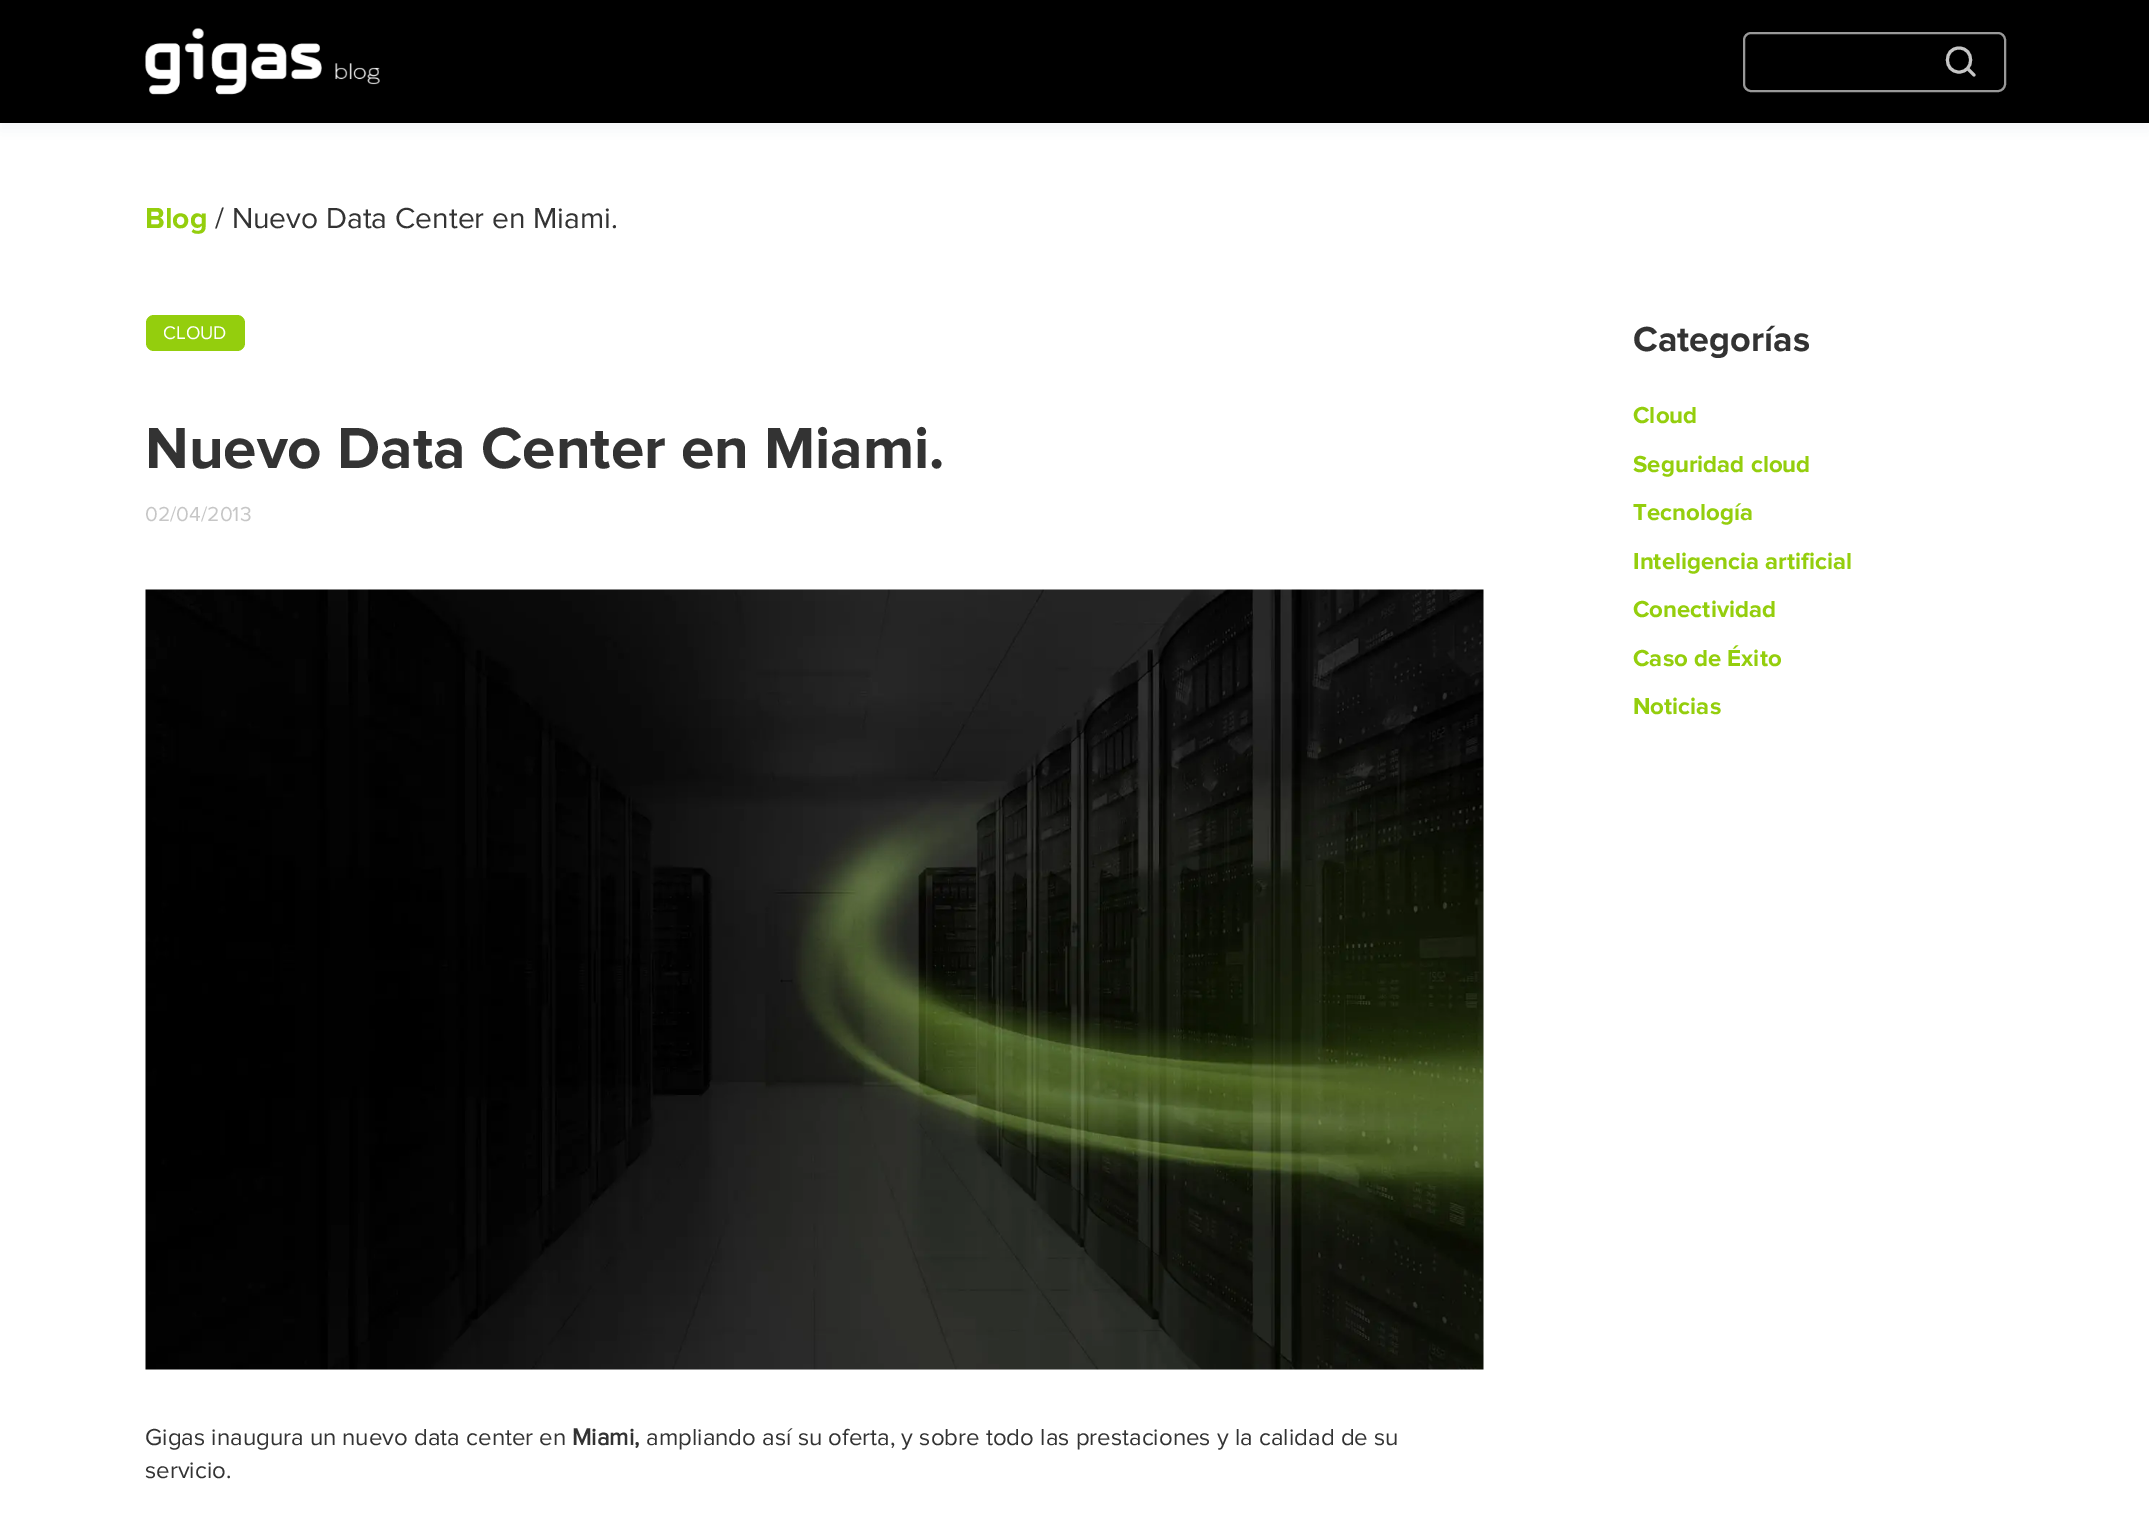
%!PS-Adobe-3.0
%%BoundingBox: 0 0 2149 1532
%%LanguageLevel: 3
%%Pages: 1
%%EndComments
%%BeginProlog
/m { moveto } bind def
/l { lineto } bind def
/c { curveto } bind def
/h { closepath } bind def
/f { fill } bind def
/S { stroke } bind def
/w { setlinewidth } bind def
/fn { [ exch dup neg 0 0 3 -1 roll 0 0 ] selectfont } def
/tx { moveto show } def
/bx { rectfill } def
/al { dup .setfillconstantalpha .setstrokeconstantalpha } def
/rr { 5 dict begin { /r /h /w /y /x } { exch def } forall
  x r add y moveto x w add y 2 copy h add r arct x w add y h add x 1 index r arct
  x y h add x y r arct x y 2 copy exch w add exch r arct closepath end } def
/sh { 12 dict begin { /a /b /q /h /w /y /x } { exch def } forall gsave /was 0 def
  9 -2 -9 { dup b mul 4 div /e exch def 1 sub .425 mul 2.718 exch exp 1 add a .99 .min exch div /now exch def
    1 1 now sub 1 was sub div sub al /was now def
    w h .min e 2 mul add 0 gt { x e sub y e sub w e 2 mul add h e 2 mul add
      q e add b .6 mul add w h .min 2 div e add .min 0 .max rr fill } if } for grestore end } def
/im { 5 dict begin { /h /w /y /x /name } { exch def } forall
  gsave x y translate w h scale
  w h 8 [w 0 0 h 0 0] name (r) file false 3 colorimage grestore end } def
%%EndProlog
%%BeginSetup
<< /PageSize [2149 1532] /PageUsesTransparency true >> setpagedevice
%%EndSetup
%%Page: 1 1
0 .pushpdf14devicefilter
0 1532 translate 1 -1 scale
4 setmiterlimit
1 setgray
0 0 2149 1532 bx
0.604 0.631 0.694 setrgbcolor
0 8 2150 123 0 7.5 0.1 sh
0 setgray
0 0 2149 123 bx
(image0.raw) 145 28 235 67 im
0.6 setgray
2 w
1744 33 261 58 7 rr S
0.776 setgray
3 w
1 setlinecap
1 setlinejoin
1959 72 m 1974.5 72 1974.5 48 1959 48 c 1943.5 48 1943.5 72 1959 72 c h 1974 75 m 1968 69 l S
/ProximaNova-Bold 30 fn
0.58 0.808 0.051 setrgbcolor
(Blog) 145 228 tx
/ProximaNova-Regular 30 fn
0.2 setgray
(/ Nuevo Data Center en Miami.) 215 228 tx
0.58 0.808 0.051 setrgbcolor
146 315 99 36 8 rr f
/ProximaNova-Regular 19 fn
1 setgray
(CLOUD) 163 339 tx
/ProximaNova-Bold 60 fn
0.2 setgray
(Nuevo Data Center en Miami.) 145 468 tx
/ProximaNova-Regular 21 fn
0.776 setgray
(02/04/2013) 145 521 tx
(image1.raw) 145 589 1339 781 im
/ProximaNova-Regular 24 fn
0.2 setgray
(Gigas inaugura un nuevo data center en) 145 1445 tx
/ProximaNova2-Bold 24 fn
(Miami,) 572 1445 tx
/ProximaNova-Regular 24 fn
(ampliando así su oferta, y sobre todo las prestaciones y la calidad de su) 646 1445 tx
(servicio.) 145 1478 tx
/ProximaNova-Bold 36 fn
(Categorías) 1633 351 tx
/ProximaNova-Bold 24 fn
0.58 0.808 0.051 setrgbcolor
(Cloud) 1633 423 tx
(Seguridad cloud) 1633 472 tx
(Tecnología) 1633 520 tx
(Inteligencia artificial) 1633 569 tx
(Conectividad) 1633 617 tx
(Caso de Éxito) 1633 666 tx
(Noticias) 1633 714 tx
.poppdf14devicefilter showpage
%%EOF
